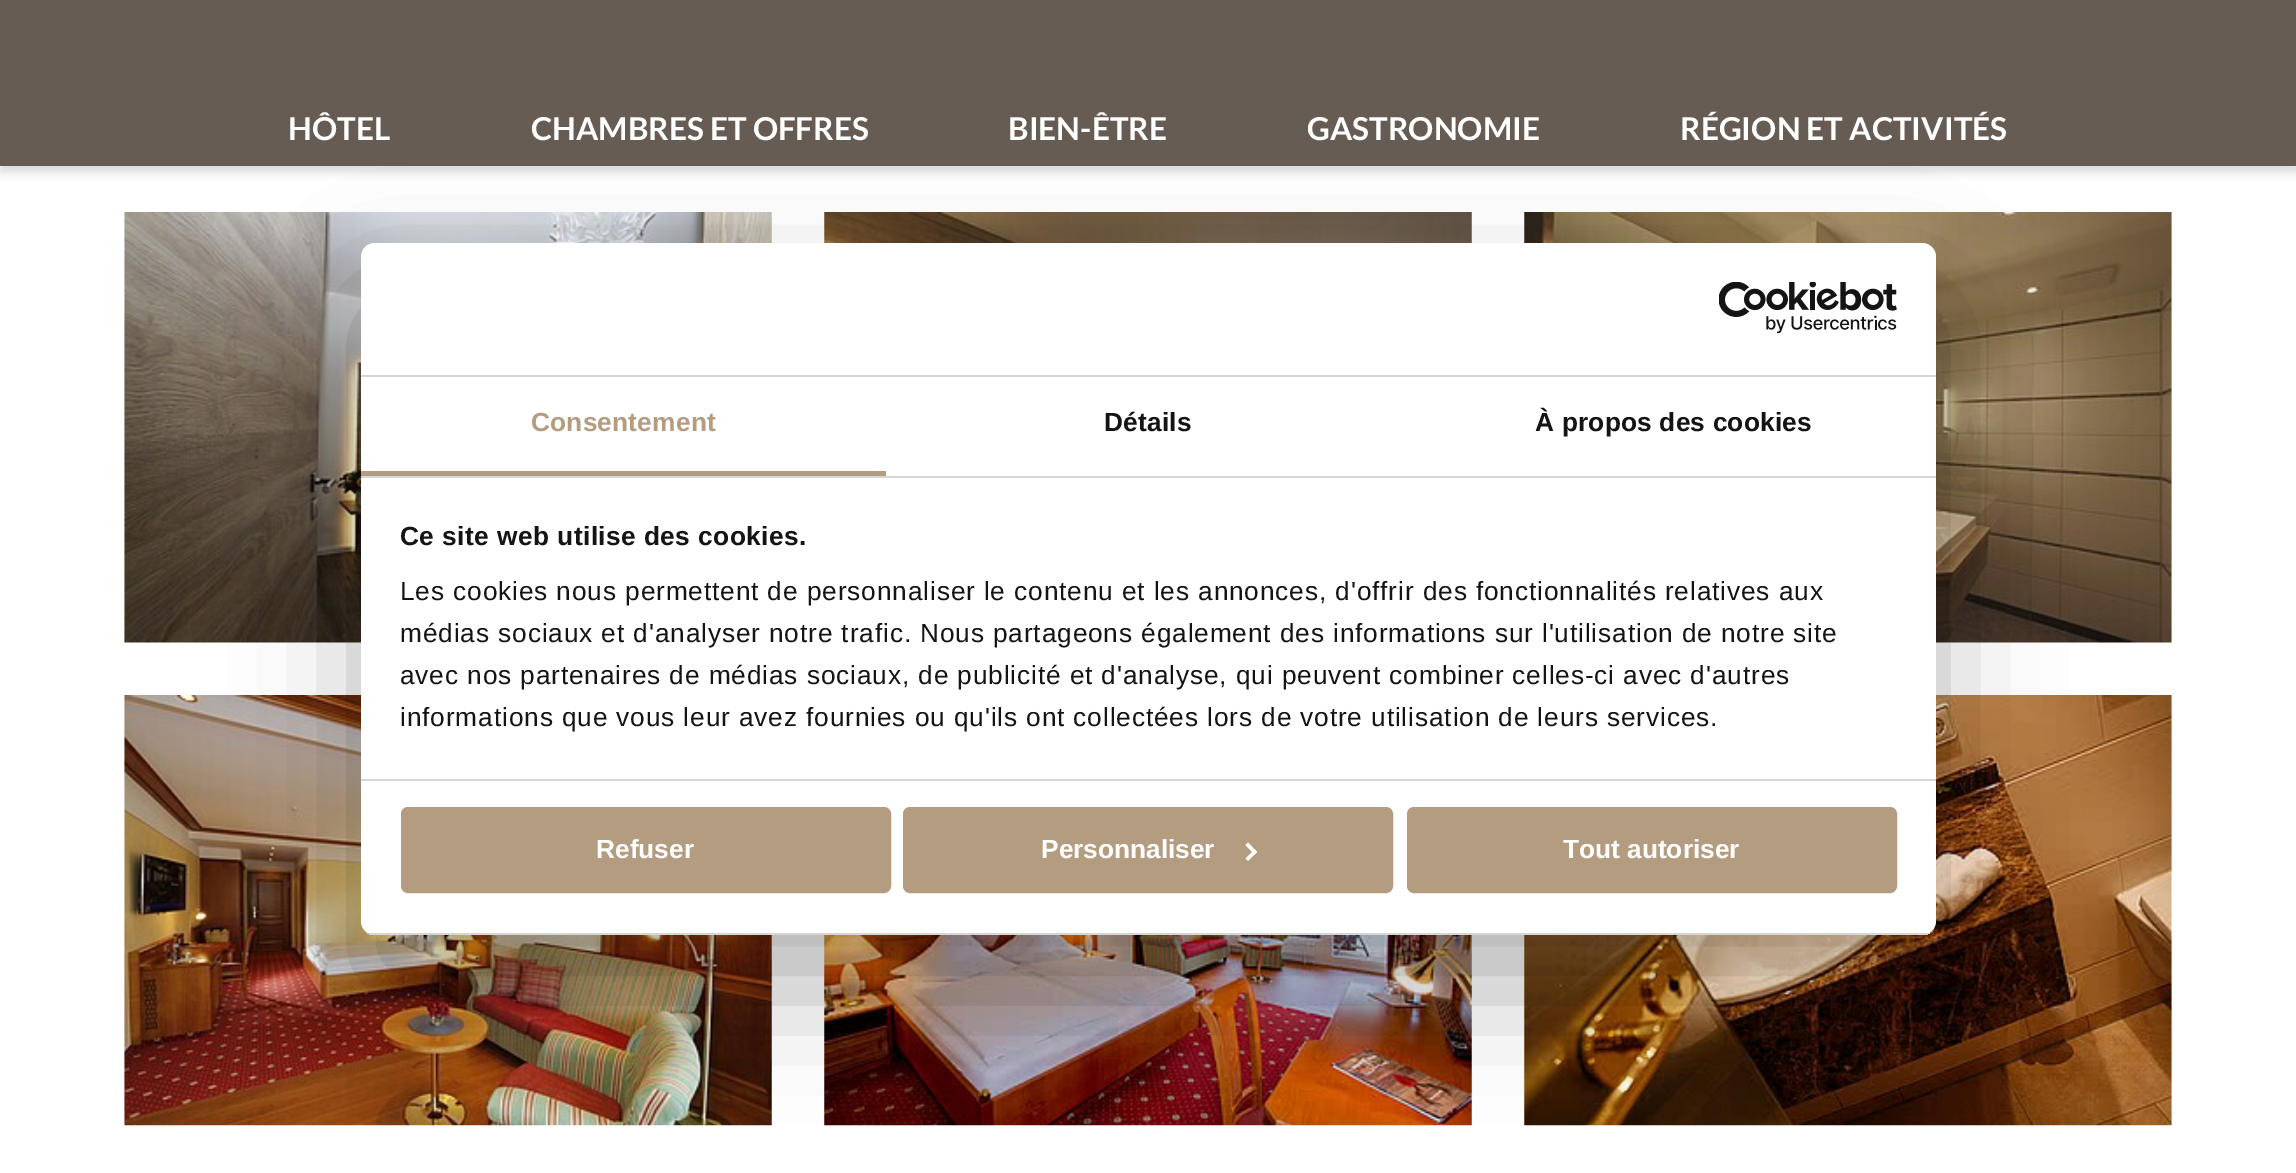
%!PS-Adobe-3.0
%%BoundingBox: 0 0 2296 1173
%%LanguageLevel: 3
%%Pages: 1
%%EndComments
%%BeginProlog
/m { moveto } bind def
/l { lineto } bind def
/h { closepath } bind def
/f { fill } bind def
/S { stroke } bind def
/q { gsave } bind def
/Q { grestore } bind def
/w { setlinewidth } bind def
/fn { [ exch dup neg 0 0 3 -1 roll 0 0 ] selectfont } def
/tx { moveto show } def
/bx { rectfill } def
/al { dup .setfillconstantalpha .setstrokeconstantalpha } def
/rr { 5 dict begin { /r /h /w /y /x } { exch def } forall
  x r add y moveto x w add y 2 copy h add r arct x w add y h add x 1 index r arct
  x y h add x y r arct x y 2 copy exch w add exch r arct closepath end } def
/sh { 12 dict begin { /a /b /q /h /w /y /x } { exch def } forall gsave /was 0 def
  9 -2 -9 { dup b mul 4 div /e exch def 1 sub .425 mul 2.718 exch exp 1 add a .99 .min exch div /now exch def
    1 1 now sub 1 was sub div sub al /was now def
    w h .min e 2 mul add 0 gt { x e sub y e sub w e 2 mul add h e 2 mul add
      q e add b .6 mul add w h .min 2 div e add .min 0 .max rr fill } if } for grestore end } def
/im { 5 dict begin { /h /w /y /x /name } { exch def } forall
  gsave x y translate w h scale
  w h 8 [w 0 0 h 0 0] name (r) file false 3 colorimage grestore end } def
%%EndProlog
%%BeginSetup
<< /PageSize [2296 1173] /PageUsesTransparency true >> setpagedevice
%%EndSetup
%%Page: 1 1
0 .pushpdf14devicefilter
0 1173 translate 1 -1 scale
4 setmiterlimit
1 setgray
0 0 2296 1173 bx
0 setgray
0 5 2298 167 0 5 0.15 sh
0.404 0.361 0.325 setrgbcolor
0 0 2296 166 bx
/Lato-Bold 31.5 fn
1 setgray
(HÔTEL) 288 140 tx
(CHAMBRES ET OFFRES) 531 140 tx
(BIEN-ÊTRE) 1008 140 tx
(GASTRONOMIE) 1307 140 tx
(RÉGION ET ACTIVITÉS) 1680 140 tx
(image0.raw) 124 212 648 431 im
(image1.raw) 824 212 648 31 im
(image2.raw) 1524 212 648 431 im
(image3.raw) 124 695 648 431 im
(image4.raw) 824 935 648 191 im
(image5.raw) 1524 695 648 431 im
0 setgray
361 299 1575 692 14 59.5 0.3 sh
1 setgray
361 243 1575 692 14 rr f
0.839 setgray
361 375 1575 2 bx
(image6.raw) 1719 282 178 52 im
361 476 1575 2 bx
0.706 0.612 0.502 setrgbcolor
361 471 525 5 bx
/LiberationSans-Bold 26.25 fn
531 431 m 0.2 0 (Consentement) ashow
0.078 setgray
1104 431 m 0.2 0 (Détails) ashow
1535 431 m 0.2 0 (À propos des cookies) ashow
0.839 setgray
361 779 1575 2 bx
0.078 setgray
400 545 m 0.45 0 (Ce site web utilise des cookies.) ashow
/LiberationSans-Regular 26.25 fn
400 600 m 0.88 0 (Les cookies nous permettent de personnaliser le contenu et les annonces, d'offrir des fonctionnalités relatives aux) ashow
400 642 m 0.88 0 (médias sociaux et d'analyser notre trafic. Nous partageons également des informations sur l'utilisation de notre site) ashow
400 684 m 0.88 0 (avec nos partenaires de médias sociaux, de publicité et d'analyse, qui peuvent combiner celles-ci avec d'autres) ashow
400 726 m 0.88 0 (informations que vous leur avez fournies ou qu'ils ont collectées lors de votre utilisation de leurs services.) ashow
q
361 243 1575 692 14 rr clip newpath
0.839 setgray
361 933 1575 2 bx
Q
0.706 0.612 0.502 setrgbcolor
403 809 486 82 5 rr q f Q
4 w
S
/LiberationSans-Bold 26.25 fn
1 setgray
(Refuser) 596 858 tx
0.706 0.612 0.502 setrgbcolor
905 809 486 82 5 rr q f Q
S
1 setgray
(Personnaliser) 1041 858 tx
1248 842.5 m 1257 852 l 1254.5 854.5 l 1245.5 845 l h f
1254.5 849.5 m 1257 852 l 1248 861 l 1245.5 858.5 l h f
0.706 0.612 0.502 setrgbcolor
1409 809 486 82 5 rr q f Q
S
1 setgray
(Tout autoriser) 1563 858 tx
.poppdf14devicefilter showpage
%%EOF
